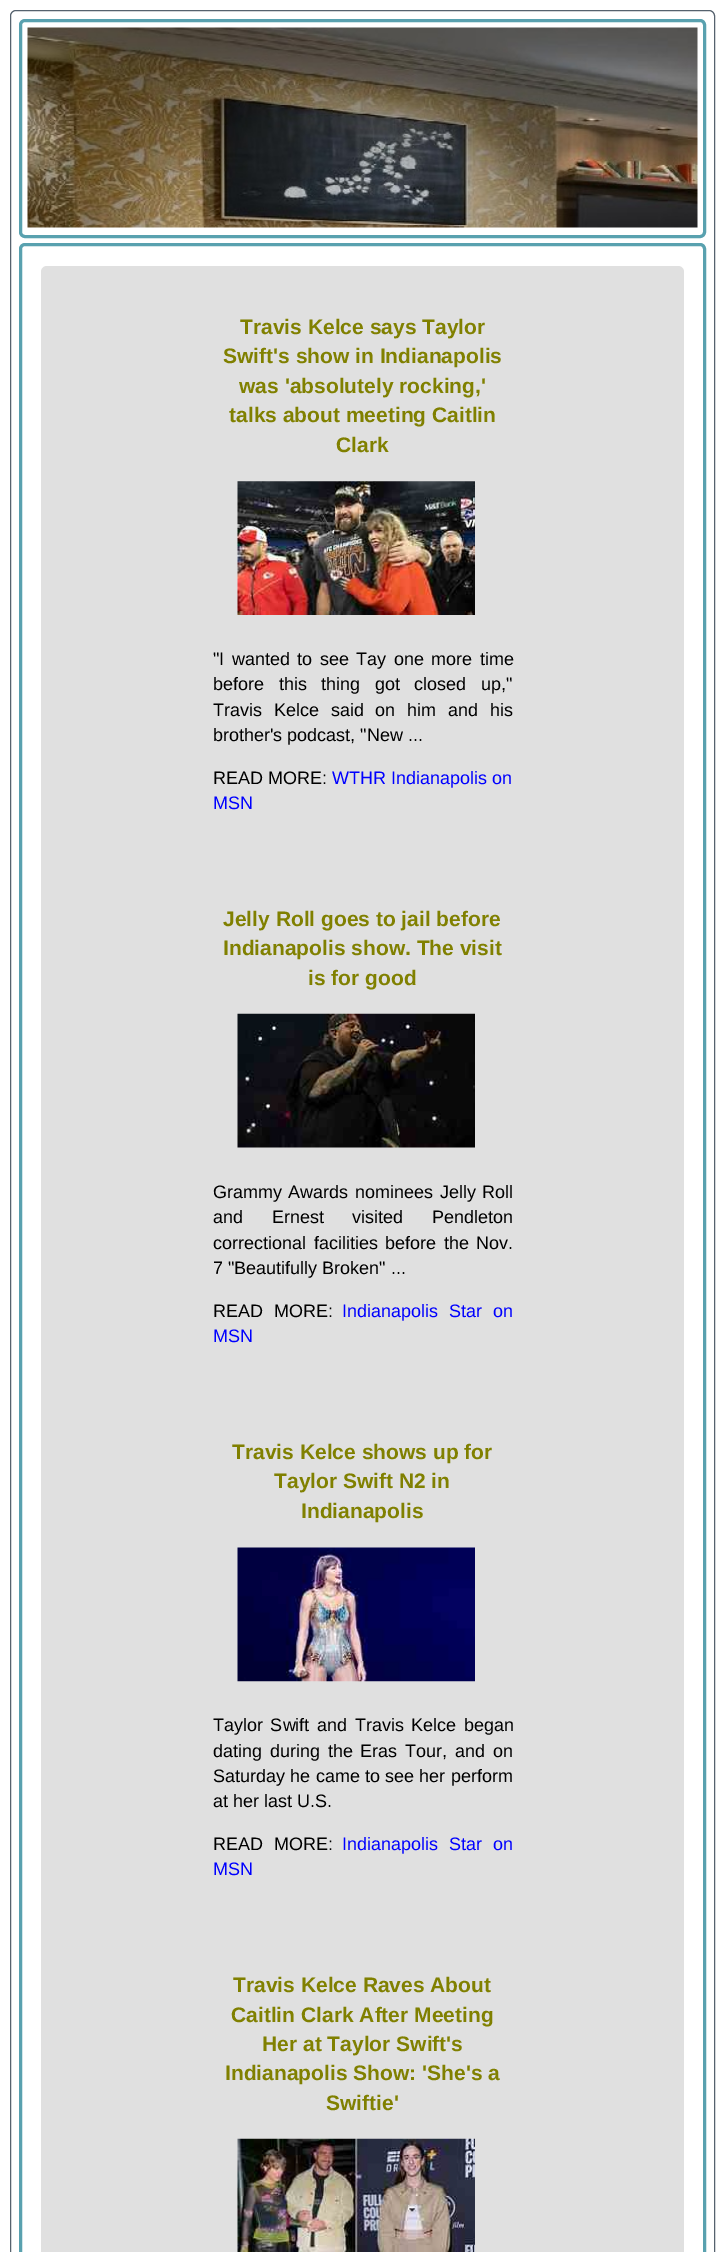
%!PS-Adobe-3.0
%%BoundingBox: 0 0 725 2252
%%LanguageLevel: 3
%%Pages: 1
%%EndComments
%%BeginProlog
/m { moveto } bind def
/f { fill } bind def
/S { stroke } bind def
/w { setlinewidth } bind def
/fn { [ exch dup neg 0 0 3 -1 roll 0 0 ] selectfont } def
/tx { moveto show } def
/bx { rectfill } def
/rr { 5 dict begin { /r /h /w /y /x } { exch def } forall
  x r add y moveto x w add y 2 copy h add r arct x w add y h add x 1 index r arct
  x y h add x y r arct x y 2 copy exch w add exch r arct closepath end } def
/im { 5 dict begin { /h /w /y /x /name } { exch def } forall
  gsave x y translate w h scale
  w h 8 [w 0 0 h 0 0] name (r) file false 3 colorimage grestore end } def
%%EndProlog
%%BeginSetup
<< /PageSize [725 2252] >> setpagedevice
%%EndSetup
%%Page: 1 1
0 2252 translate 1 -1 scale
4 setmiterlimit
1 setgray
0 0 725 2252 bx
0.337 0.384 0.431 setrgbcolor
10.5 10.5 704 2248 5.5 rr S
0.349 0.631 0.686 setrgbcolor
3 w
20.5 20.5 684 216 4.5 rr S
(image0.raw) 27 27 671 201 im
20.5 244.5 684 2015 4.5 rr S
0.878 setgray
41 266 643 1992 6 rr f
/LiberationSans-Bold 21 fn
0.502 0.502 0 setrgbcolor
(Travis Kelce says Taylor) 240 334 tx
(Swift's show in Indianapolis) 223 363 tx
(was 'absolutely rocking,') 239 393 tx
(talks about meeting Caitlin) 229 422 tx
(Clark) 336 452 tx
(image1.raw) 237 481 238 134 im
/LiberationSans-Regular 18 fn
0 setgray
213 665 m 2.5 0 32 ("I wanted to see Tay one more time) widthshow
213 690 m 9.5 0 32 (before this thing got closed up,") widthshow
213 716 m 6.75 0 32 (Travis Kelce said on him and his) widthshow
(brother's podcast, "New ...) 213 741 tx
(READ MORE:) 213 784 tx
0 0 1 setrgbcolor
(WTHR Indianapolis on) 332 784 tx
(MSN) 213 809 tx
/LiberationSans-Bold 21 fn
0.502 0.502 0 setrgbcolor
(Jelly Roll goes to jail before) 223 926 tx
(Indianapolis show. The visit) 223 955 tx
(is for good) 308 985 tx
(image2.raw) 237 1013 238 135 im
/LiberationSans-Regular 18 fn
0 setgray
213 1198 m 1.5 0 32 (Grammy Awards nominees Jelly Roll) widthshow
213 1223 m 23.5 0 32 (and Ernest visited Pendleton) widthshow
213 1249 m 2.5 0 32 (correctional facilities before the Nov.) widthshow
(7 "Beautifully Broken" ...) 213 1274 tx
213 1317 m 6 0 32 (READ MORE:) widthshow
0 0 1 setrgbcolor
342 1317 m 6 0 32 (Indianapolis Star on) widthshow
(MSN) 213 1342 tx
/LiberationSans-Bold 21 fn
0.502 0.502 0 setrgbcolor
(Travis Kelce shows up for) 232 1459 tx
(Taylor Swift N2 in) 274 1488 tx
(Indianapolis) 301 1518 tx
(image3.raw) 237 1547 238 135 im
/LiberationSans-Regular 18 fn
0 setgray
213 1731 m 2.5 0 32 (Taylor Swift and Travis Kelce began) widthshow
213 1757 m 2.75 0 32 (dating during the Eras Tour, and on) widthshow
213 1782 m 0.25 0 32 (Saturday he came to see her perform) widthshow
(at her last U.S.) 213 1807 tx
213 1850 m 6 0 32 (READ MORE:) widthshow
0 0 1 setrgbcolor
342 1850 m 6 0 32 (Indianapolis Star on) widthshow
(MSN) 213 1875 tx
/LiberationSans-Bold 21 fn
0.502 0.502 0 setrgbcolor
(Travis Kelce Raves About) 233 1992 tx
(Caitlin Clark After Meeting) 231 2022 tx
(Her at Taylor Swift's) 262 2051 tx
(Indianapolis Show: 'She's a) 225 2080 tx
(Swiftie') 326 2110 tx
(image4.raw) 237 2138 238 114 im
showpage
%%EOF
